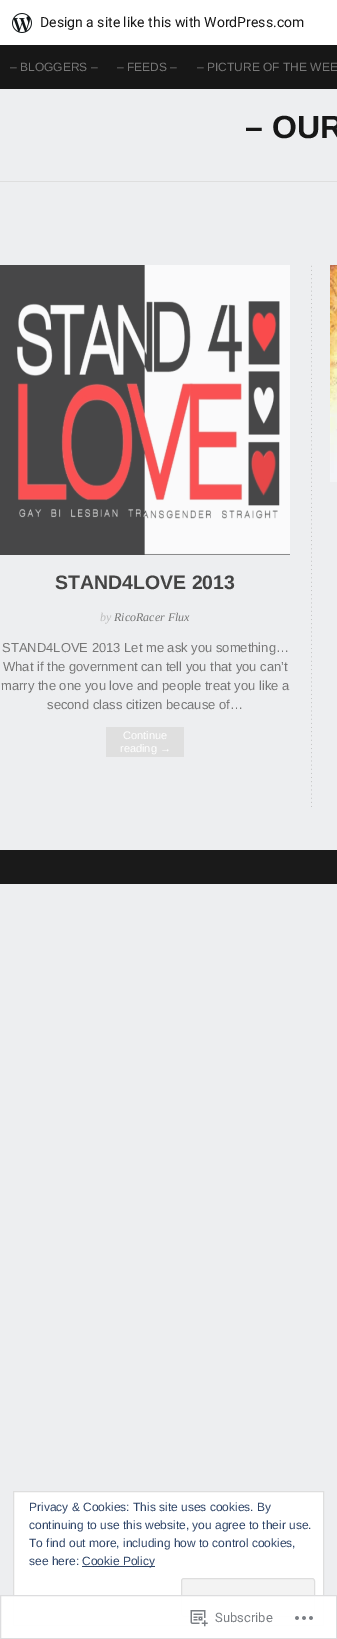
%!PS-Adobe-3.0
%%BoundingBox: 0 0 337 1639
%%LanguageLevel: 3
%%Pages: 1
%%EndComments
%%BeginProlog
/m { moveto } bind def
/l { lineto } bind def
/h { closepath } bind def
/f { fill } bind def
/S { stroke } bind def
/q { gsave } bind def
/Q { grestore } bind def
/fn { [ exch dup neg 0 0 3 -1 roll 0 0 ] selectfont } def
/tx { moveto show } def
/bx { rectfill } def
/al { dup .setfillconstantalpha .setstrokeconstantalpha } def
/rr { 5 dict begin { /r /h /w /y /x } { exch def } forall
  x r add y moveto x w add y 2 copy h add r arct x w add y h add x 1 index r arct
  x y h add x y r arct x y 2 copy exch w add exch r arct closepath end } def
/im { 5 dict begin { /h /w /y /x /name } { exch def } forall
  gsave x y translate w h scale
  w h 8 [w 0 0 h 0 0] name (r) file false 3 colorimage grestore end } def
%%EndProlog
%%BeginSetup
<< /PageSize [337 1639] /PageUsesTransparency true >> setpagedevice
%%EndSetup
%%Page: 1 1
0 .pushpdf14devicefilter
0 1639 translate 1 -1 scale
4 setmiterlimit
0.929 0.933 0.941 setrgbcolor
0 0 337 1639 bx
1 setgray
0 0 337 45 bx
(image0.raw) 12 13 20 20 im
/Roboto-Regular 14 fn
0.09 setgray
(Design a site like this with WordPress.com) 40 27 tx
0.102 setgray
0 850 337 34 bx
1 setgray
13.5 1491.5 m 323.5 1491.5 l 323.5 1625.5 l 13.5 1625.5 l h q f Q
0.871 setgray
S
0.953 setgray
181.5 1578.5 133 38 2.5 rr q f Q
0.871 setgray
S
0.98 al
1 setgray
0 1595 337 44 bx
0.863 0.863 0.871 setrgbcolor
0.5 1595.5 336 43 rectstroke
1 al
(image1.raw) 190 1610 18 17 im
/Roboto-Regular 13 fn
0.482 0.498 0.518 setrgbcolor
(Subscribe) 215 1622 tx
(image2.raw) 295 1616 18 4 im
0.09 setgray
0 45 337 44 bx
/LiberationSans-Regular 12 fn
0.467 setgray
(– BLOGGERS –) 10 71 tx
(– FEEDS –) 117 71 tx
(– PICTURE OF THE WEE) 197 71 tx
0.871 setgray
0 181 337 1 bx
/LiberationSans-Bold 32 fn
0.09 setgray
(– OUR) 245 138 tx
(image3.raw) 311 265 1 542 im
(image4.raw) 330 265 7 217 im
(image5.raw) 0 265 290 290 im
/LiberationSans-Bold 19.5 fn
0.267 setgray
(STAND4LOVE 2013) 55 589 tx
/LiberationSerif-Italic 12 fn
0.733 setgray
(by) 100 621 tx
0.467 setgray
(RicoRacer Flux) 114 621 tx
/LiberationSans-Regular 13 fn
(STAND4LOVE 2013 Let me ask you something…) 2 652 tx
(What if the government can tell you that you can’t) 3 671 tx
(marry the one you love and people treat you like a) 1 690 tx
(second class citizen because of…) 47 709 tx
0.875 setgray
106 727 78 30 bx
/LiberationSans-Regular 11 fn
1 setgray
(Continue) 123 739 tx
(reading →) 120 752 tx
/LiberationSans-Regular 12 fn
0.18 0.267 0.404 setrgbcolor
(Privacy & Cookies: This site uses cookies. By) 29 1511 tx
(continuing to use this website, you agree to their use.) 29 1529 tx
(To find out more, including how to control cookies,) 29 1547 tx
(see here:) 29 1565 tx
82 1566 73 1 bx
(Cookie Policy) 82 1565 tx
.poppdf14devicefilter showpage
%%EOF
